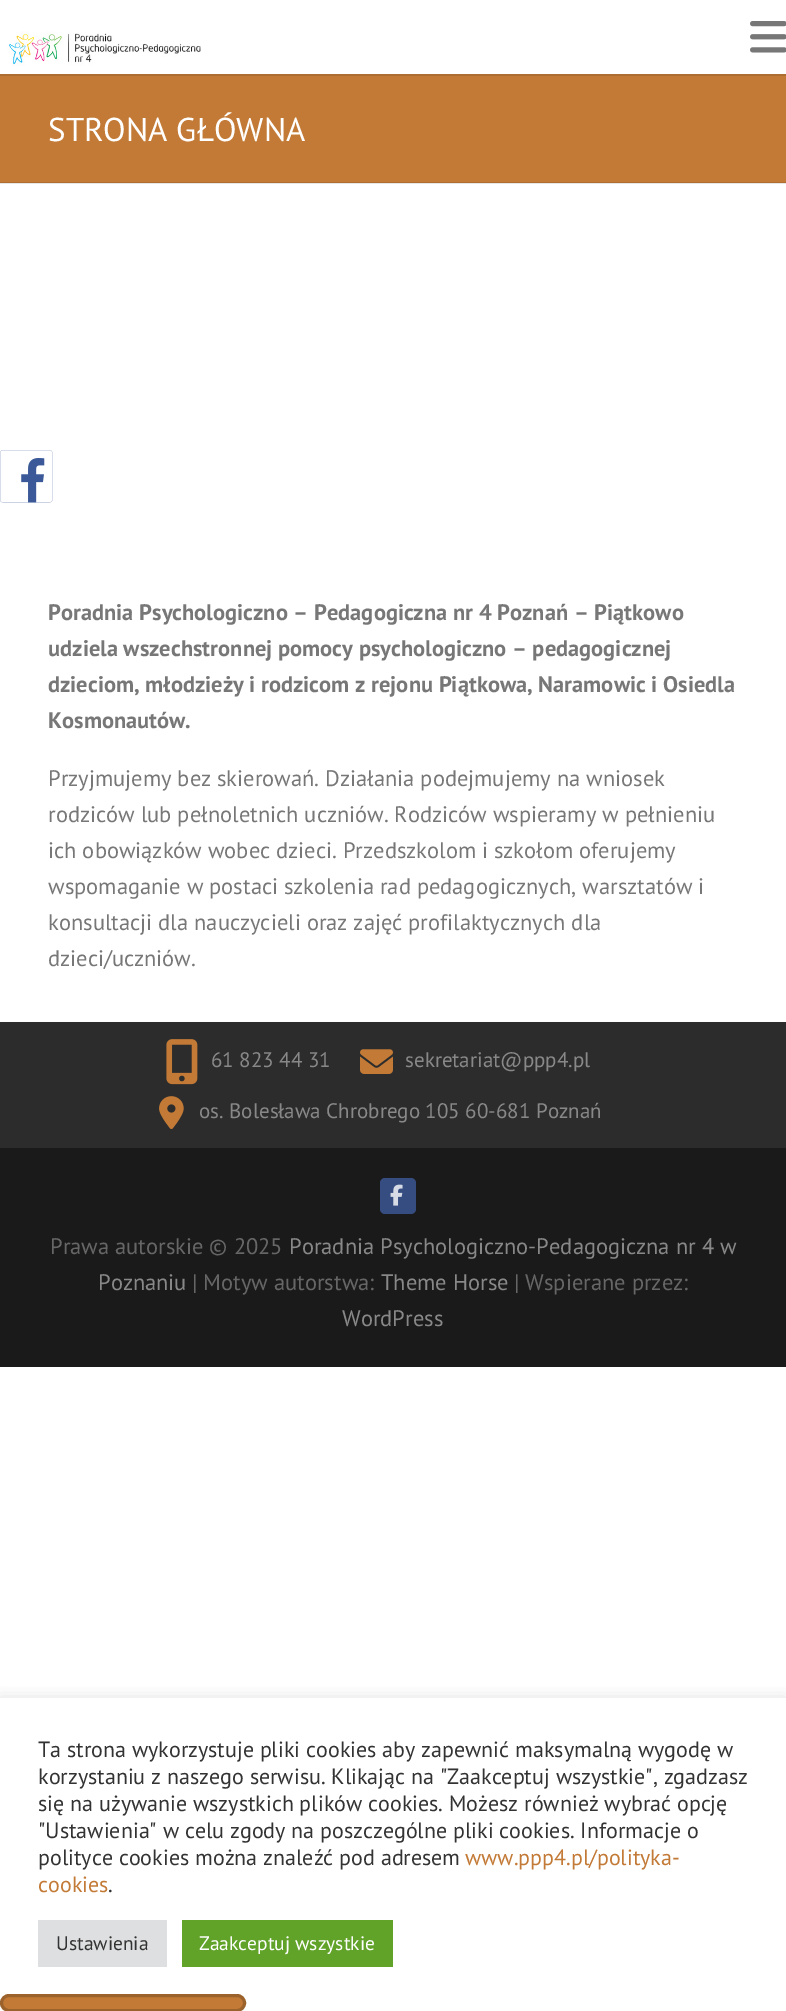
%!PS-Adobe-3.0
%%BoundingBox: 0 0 786 2011
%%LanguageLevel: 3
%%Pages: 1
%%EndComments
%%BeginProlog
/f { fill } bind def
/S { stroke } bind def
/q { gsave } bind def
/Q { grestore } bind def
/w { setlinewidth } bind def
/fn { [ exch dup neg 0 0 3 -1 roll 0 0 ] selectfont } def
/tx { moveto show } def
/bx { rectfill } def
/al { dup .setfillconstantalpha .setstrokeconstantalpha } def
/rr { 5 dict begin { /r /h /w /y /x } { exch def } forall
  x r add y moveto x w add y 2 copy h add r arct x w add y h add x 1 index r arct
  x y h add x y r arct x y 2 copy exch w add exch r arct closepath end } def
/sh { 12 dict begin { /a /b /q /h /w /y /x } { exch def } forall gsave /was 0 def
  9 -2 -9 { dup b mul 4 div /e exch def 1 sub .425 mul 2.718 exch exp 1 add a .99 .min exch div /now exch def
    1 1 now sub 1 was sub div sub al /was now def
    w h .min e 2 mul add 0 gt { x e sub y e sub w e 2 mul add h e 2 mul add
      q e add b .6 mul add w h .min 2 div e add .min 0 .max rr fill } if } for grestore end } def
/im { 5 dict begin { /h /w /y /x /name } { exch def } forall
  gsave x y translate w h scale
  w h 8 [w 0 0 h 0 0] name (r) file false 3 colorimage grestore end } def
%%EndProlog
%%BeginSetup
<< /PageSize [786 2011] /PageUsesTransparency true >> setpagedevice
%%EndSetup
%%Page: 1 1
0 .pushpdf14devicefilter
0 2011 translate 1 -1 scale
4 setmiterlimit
1 setgray
0 0 786 2011 bx
0.902 setgray
0 183 786 1 bx
(image0.raw) 0 450 53 53 im
(image1.raw) 7 31 194 35 im
(image2.raw) 750 21 36 32 im
0.761 0.478 0.212 setrgbcolor
0 76 786 106 bx
0.686 0.431 0.192 setrgbcolor
0 182 786 1 bx
0 74 786 2 bx
/PTSans-Regular 33 fn
1 setgray
(STRONA GŁÓWNA) 48 141 tx
/PTSans-Bold 22.5 fn
0.467 setgray
(Poradnia Psychologiczno – Pedagogiczna nr 4 Poznań – Piątkowo) 48 620 tx
(udziela wszechstronnej pomocy psychologiczno – pedagogicznej) 48 656 tx
(dzieciom, młodzieży i rodzicom z rejonu Piątkowa, Naramowic i Osiedla) 48 692 tx
(Kosmonautów.) 48 728 tx
/PTSans-Regular 22.5 fn
(Przyjmujemy bez skierowań. Działania podejmujemy na wniosek) 48 786 tx
(rodziców lub pełnoletnich uczniów. Rodziców wspieramy w pełnieniu) 48 822 tx
(ich obowiązków wobec dzieci. Przedszkolom i szkołom oferujemy) 48 858 tx
(wspomaganie w postaci szkolenia rad pedagogicznych, warsztatów i) 48 894 tx
(konsultacji dla nauczycieli oraz zajęć profilaktycznych dla) 48 930 tx
(dzieci/uczniów.) 48 966 tx
0.173 setgray
0 1022 786 126 bx
(image3.raw) 166 1039 32 46 im
/PTSans-Regular 21 fn
0.533 setgray
(61 823 44 31) 211 1067 tx
(image4.raw) 360 1049 33 25 im
(sekretariat@ppp4.pl) 405 1067 tx
(image5.raw) 159 1096 25 33 im
(os. Bolesława Chrobrego 105 60-681 Poznań) 199 1118 tx
0.102 setgray
0 1148 786 219 bx
0.208 0.302 0.502 setrgbcolor
380 1178 36 36 5 rr f
(image6.raw) 390 1184 13 22 im
/PTSans-Regular 22.5 fn
0.4 setgray
(Prawa autorskie © 2025) 50 1254 tx
0.533 setgray
(Poradnia Psychologiczno-Pedagogiczna nr 4 w) 289 1254 tx
(Poznaniu) 98 1290 tx
0.4 setgray
(| Motyw autorstwa:) 192 1290 tx
0.533 setgray
(Theme Horse) 381 1290 tx
0.4 setgray
(| Wspierane przez:) 514 1290 tx
0.533 setgray
(WordPress) 342 1326 tx
q
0 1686 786 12 rectclip
0.675 0.671 0.671 setrgbcolor
0 1697 786 313 0 7.5 0.3 sh
Q
/PTSans-Regular 22 fn
0.2 setgray
(Ta strona wykorzystuje pliki cookies aby zapewnić maksymalną wygodę w) 38 1757 tx
(korzystaniu z naszego serwisu. Klikając na "Zaakceptuj wszystkie", zgadzasz) 38 1784 tx
(się na używanie wszystkich plików cookies. Możesz również wybrać opcję) 38 1811 tx
("Ustawienia" w celu zgody na poszczególne pliki cookies. Informacje o) 38 1838 tx
(polityce cookies można znaleźć pod adresem) 38 1865 tx
0.761 0.478 0.212 setrgbcolor
(www.ppp4.pl/polityka-) 465 1865 tx
(cookies) 38 1892 tx
0.2 setgray
(.) 108 1892 tx
0.871 0.875 0.878 setrgbcolor
38 1920 129 47 bx
/PTSans-Regular 19.5 fn
0.2 setgray
(Ustawienia) 56 1950 tx
0.38 0.635 0.161 setrgbcolor
182 1920 211 47 bx
1 setgray
(Zaakceptuj wszystkie) 199 1950 tx
0.761 0.478 0.212 setrgbcolor
1.5 1995.5 243 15 7.5 rr q f Q
0.612 0.384 0.173 setrgbcolor
3 w
S
.poppdf14devicefilter showpage
%%EOF
